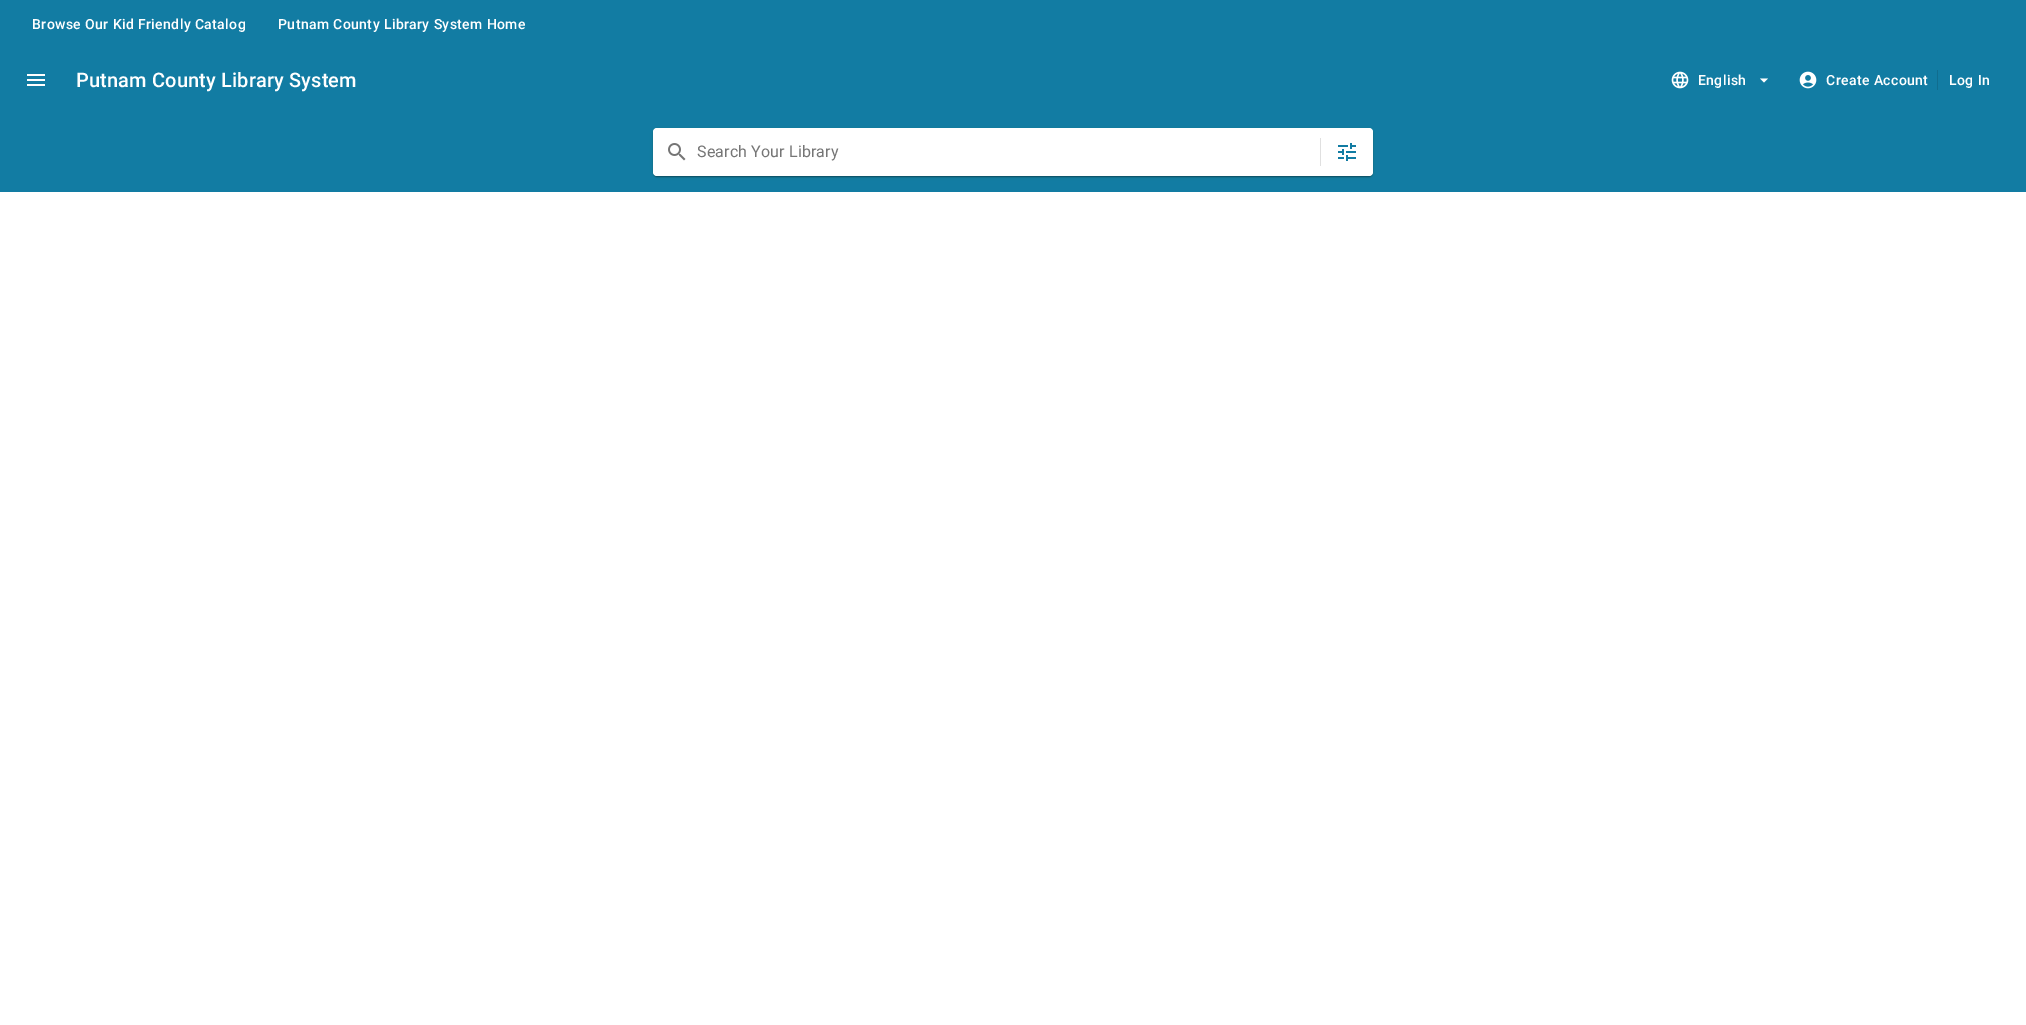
%!PS-Adobe-3.0
%%BoundingBox: 0 0 2026 1025
%%LanguageLevel: 3
%%Pages: 1
%%EndComments
%%BeginProlog
/m { moveto } bind def
/l { lineto } bind def
/h { closepath } bind def
/f { fill } bind def
/fn { [ exch dup neg 0 0 3 -1 roll 0 0 ] selectfont } def
/bx { rectfill } def
/al { dup .setfillconstantalpha .setstrokeconstantalpha } def
/rr { 5 dict begin { /r /h /w /y /x } { exch def } forall
  x r add y moveto x w add y 2 copy h add r arct x w add y h add x 1 index r arct
  x y h add x y r arct x y 2 copy exch w add exch r arct closepath end } def
/sh { 12 dict begin { /a /b /q /h /w /y /x } { exch def } forall gsave /was 0 def
  9 -2 -9 { dup b mul 4 div /e exch def 1 sub .425 mul 2.718 exch exp 1 add a .99 .min exch div /now exch def
    1 1 now sub 1 was sub div sub al /was now def
    w h .min e 2 mul add 0 gt { x e sub y e sub w e 2 mul add h e 2 mul add
      q e add b .6 mul add w h .min 2 div e add .min 0 .max rr fill } if } for grestore end } def
/im { 5 dict begin { /h /w /y /x /name } { exch def } forall
  gsave x y translate w h scale
  w h 8 [w 0 0 h 0 0] name (r) file false 3 colorimage grestore end } def
%%EndProlog
%%BeginSetup
<< /PageSize [2026 1025] /PageUsesTransparency true >> setpagedevice
%%EndSetup
%%Page: 1 1
0 .pushpdf14devicefilter
0 1025 translate 1 -1 scale
4 setmiterlimit
1 setgray
0 0 2026 1025 bx
0.071 0.486 0.639 setrgbcolor
0 0 2026 192 bx
/Roboto-Medium 14 fn
1 setgray
32 29 m 0.4 0 (Browse Our Kid Friendly Catalog) ashow
278 29 m 0.4 0 (Putnam County Library System Home) ashow
(image0.raw) 27 74 18 12 im
/Roboto-Medium 20 fn
76 87 m 0.15 0 (Putnam County Library System) ashow
(image1.raw) 1671 71 18 18 im
/Roboto-Medium 14 fn
1698 85 m 0.4 0 (English) ashow
1760 78.5 m 1764 82.5 l 1768 78.5 l h f
(image2.raw) 1799 71 18 18 im
1826 85 m 0.4 0 (Create Account) ashow
0.063 0.427 0.561 setrgbcolor
1937 70 1 20 bx
1 setgray
1949 85 m 0.4 0 (Log In) ashow
0 setgray
653 129 720 48 4 1.5 0.12 sh
653 129 720 48 4 0.5 0.14 sh
654 131 718 46 3 0.5 0.2 sh
1 setgray
653 128 720 48 4 rr f
(image3.raw) 668 143 18 18 im
/Roboto-Regular 16 fn
0.463 setgray
697 157 m 0.15 0 (Search Your Library) ashow
0.878 setgray
1320 138 1 28 bx
(image4.raw) 1338 143 18 18 im
.poppdf14devicefilter showpage
%%EOF
